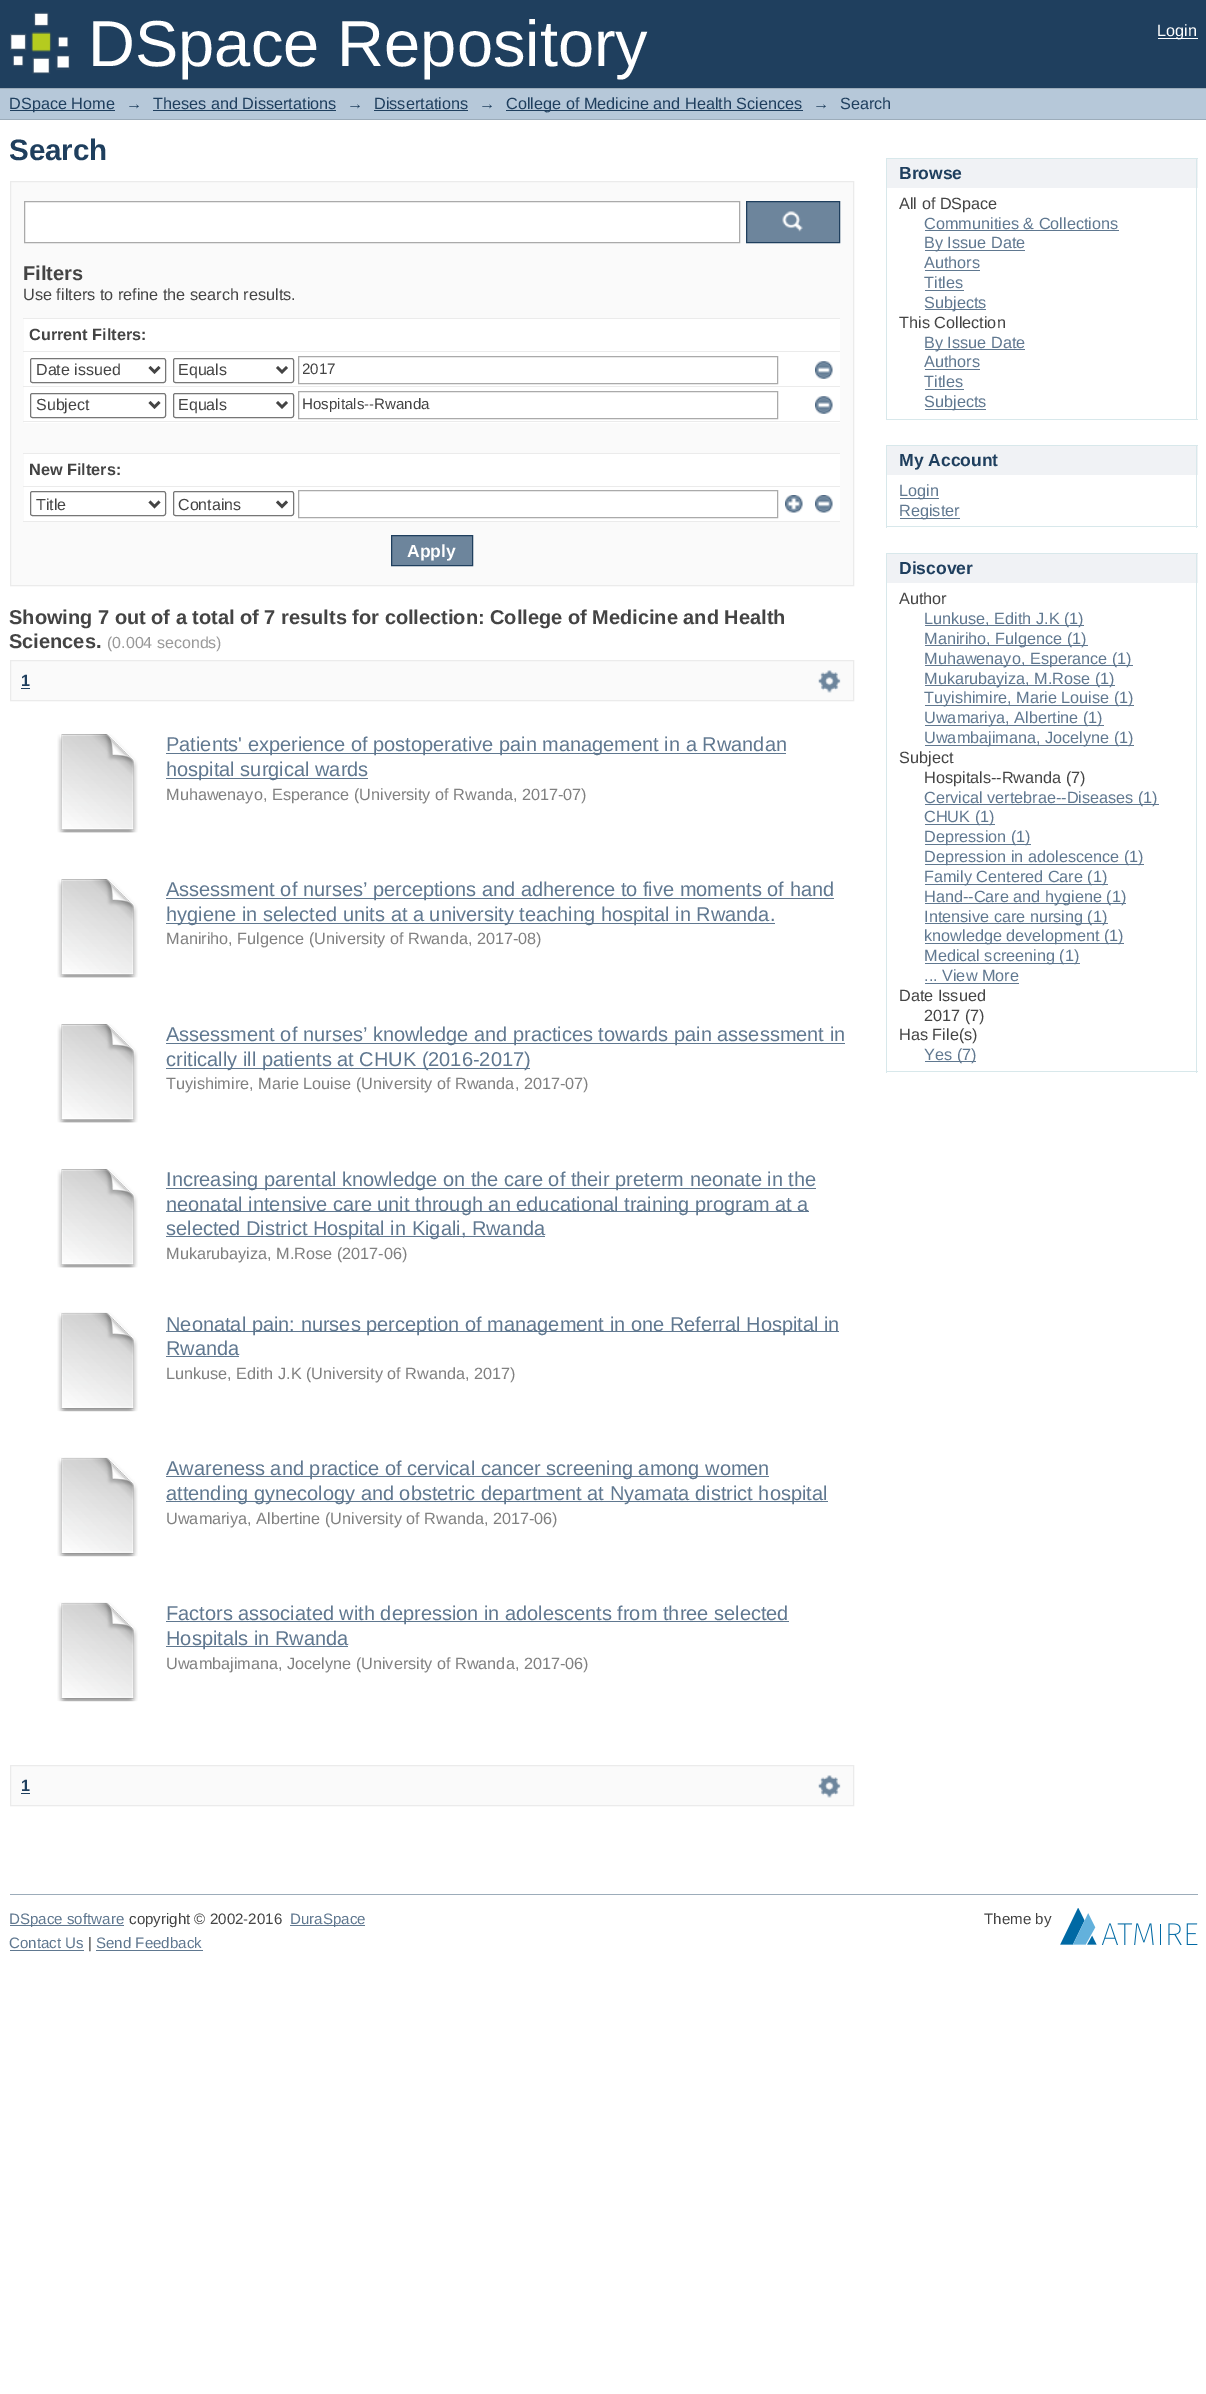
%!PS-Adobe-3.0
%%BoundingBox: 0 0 1206 2394
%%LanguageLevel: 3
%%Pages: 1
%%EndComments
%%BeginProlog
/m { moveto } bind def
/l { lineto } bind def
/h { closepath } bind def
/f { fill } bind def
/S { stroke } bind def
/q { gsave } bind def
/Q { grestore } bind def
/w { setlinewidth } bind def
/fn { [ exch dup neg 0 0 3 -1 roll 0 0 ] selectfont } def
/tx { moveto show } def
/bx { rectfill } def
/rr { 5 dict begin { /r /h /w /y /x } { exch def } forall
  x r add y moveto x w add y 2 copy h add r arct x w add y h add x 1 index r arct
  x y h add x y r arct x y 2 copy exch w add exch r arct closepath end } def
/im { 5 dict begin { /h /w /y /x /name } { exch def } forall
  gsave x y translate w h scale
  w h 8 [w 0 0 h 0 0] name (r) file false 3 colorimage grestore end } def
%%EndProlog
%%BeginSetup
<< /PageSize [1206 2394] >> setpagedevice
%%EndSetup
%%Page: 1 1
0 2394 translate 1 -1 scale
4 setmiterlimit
1 setgray
0 0 1206 2394 bx
0.122 0.247 0.369 setrgbcolor
0 0 1206 88 bx
(image0.raw) 10 12 60 62 im
/LiberationSans-Regular 65 fn
1 setgray
(DSpace Repository) 88 66 tx
1158 38 40 1 bx
/LiberationSans-Regular 16.25 fn
(Login) 1157 36 tx
0.714 0.784 0.851 setrgbcolor
0 89 1206 30 bx
0.612 0.675 0.729 setrgbcolor
0 88 1206 1 bx
0 119 1206 1 bx
0.122 0.247 0.369 setrgbcolor
10 110 105 1 bx
(DSpace Home) 9 109 tx
(→) 126 109 tx
(Theses and Dissertations) 153 109 tx
153 110 183 1 bx
(→) 347 109 tx
(Dissertations) 374 109 tx
374 110 94 1 bx
(→) 479 109 tx
506 110 297 1 bx
(College of Medicine and Health Sciences) 506 109 tx
(→) 813 109 tx
(Search) 840 109 tx
/LiberationSans-Bold 29.5 fn
(Search) 9 160 tx
0.98 setgray
10.5 181.5 m 853.5 181.5 l 853.5 585.5 l 10.5 585.5 l h q f Q
0.922 setgray
S
1 setgray
24.5 201.5 m 739.5 201.5 l 739.5 242.5 l 24.5 242.5 l h q f Q
0.667 setgray
S
0.427 0.522 0.612 setrgbcolor
747 202 92 40 bx
(image1.raw) 782 211 21 21 im
0.122 0.247 0.369 setrgbcolor
746.5 201.5 93 41 rectstroke
/LiberationSans-Bold 20 fn
0.267 setgray
(Filters) 23 280 tx
/LiberationSans-Regular 16.25 fn
(Use filters to refine the search results.) 23 300 tx
1 setgray
24 319 816 202 bx
0.922 setgray
23 318 817 1 bx
/LiberationSans-Bold 16.25 fn
0.267 setgray
(Current Filters:) 29 340 tx
0.922 setgray
23 351 817 1 bx
0.463 setgray
30.5 358.5 135 24 2 rr S
0.267 setgray
2.5 w
149.5 367 m 154.5 372 l 159.5 367 l S
/LiberationSans-Regular 16 fn
(Date issued) 36 375 tx
0.463 setgray
1 w
173.5 358.5 120 24 2 rr S
0.267 setgray
2.5 w
277 367 m 282 372 l 287 367 l S
(Equals) 178 375 tx
0.667 setgray
1 w
298.5 356.5 479 27 rectstroke
q
303 361 470 18 rectclip
/LiberationSans-Regular 15.1 fn
0.267 setgray
(2017) 302 374 tx
Q
(image2.raw) 815 361 18 18 im
0.922 setgray
23 386 817 1 bx
0.463 setgray
30.5 393.5 135 24 2 rr S
0.267 setgray
2.5 w
149.5 402 m 154.5 407 l 159.5 402 l S
(Subject) 36 410 tx
0.463 setgray
1 w
173.5 393.5 120 24 2 rr S
0.267 setgray
2.5 w
277 402 m 282 407 l 287 402 l S
(Equals) 178 410 tx
0.667 setgray
1 w
298.5 391.5 479 27 rectstroke
/LiberationSans-Regular 15.1 fn
0.267 setgray
(Hospitals--Rwanda) 302 409 tx
(image2.raw) 815 396 18 18 im
0.98 setgray
24 423 816 30 bx
0.922 setgray
23 421 817 1 bx
23 453 817 1 bx
/LiberationSans-Bold 16.25 fn
0.267 setgray
(New Filters:) 29 475 tx
0.922 setgray
23 486 817 1 bx
0.463 setgray
30.5 491.5 135 24 2 rr S
0.267 setgray
2.5 w
149.5 501.5 m 154.5 506.5 l 159.5 501.5 l S
/LiberationSans-Regular 16 fn
(Title) 36 510 tx
0.463 setgray
1 w
173.5 491.5 120 24 2 rr S
0.267 setgray
2.5 w
277 501.5 m 282 506.5 l 287 501.5 l S
(Contains) 178 510 tx
0.667 setgray
1 w
298.5 490.5 479 27 rectstroke
(image3.raw) 785 495 18 18 im
(image4.raw) 815 495 18 18 im
0.922 setgray
23 521 817 1 bx
0.427 0.522 0.612 setrgbcolor
391.5 535.5 m 472.5 535.5 l 472.5 565.5 l 391.5 565.5 l h q f Q
0.122 0.247 0.369 setrgbcolor
S
/LiberationSans-Bold 17.5 fn
1 setgray
(Apply) 407 557 tx
/LiberationSans-Bold 20 fn
0.267 setgray
(Showing 7 out of a total of 7 results for collection: College of Medicine and Health) 9 624 tx
(Sciences.) 9 648 tx
/LiberationSans-Regular 16 fn
0.6 setgray
(\(0.004 seconds\)) 107 648 tx
0.98 setgray
10.5 660.5 m 853.5 660.5 l 853.5 700.5 l 10.5 700.5 l h q f Q
0.922 setgray
S
/LiberationSans-Bold 16.25 fn
0.122 0.247 0.369 setrgbcolor
(1) 21 686 tx
21 688 9 1 bx
(image5.raw) 818 670 23 23 im
(image6.raw) 57 734 81 99 im
0.376 0.471 0.565 setrgbcolor
166 753 620 1 bx
/LiberationSans-Regular 20 fn
(Patients' experience of postoperative pain management in a Rwandan) 166 751 tx
166 778 202 1 bx
(hospital surgical wards) 166 776 tx
/LiberationSans-Regular 16.25 fn
0.502 setgray
(Muhawenayo, Esperance \(University of Rwanda, 2017-07\)) 166 800 tx
(image6.raw) 57 879 81 99 im
0.376 0.471 0.565 setrgbcolor
166 898 668 1 bx
/LiberationSans-Regular 20 fn
(Assessment of nurses’ perceptions and adherence to five moments of hand) 166 896 tx
166 923 609 1 bx
(hygiene in selected units at a university teaching hospital in Rwanda.) 166 921 tx
/LiberationSans-Regular 16.25 fn
0.502 setgray
(Maniriho, Fulgence \(University of Rwanda, 2017-08\)) 166 944 tx
(image6.raw) 57 1024 81 99 im
0.376 0.471 0.565 setrgbcolor
166 1043 679 1 bx
/LiberationSans-Regular 20 fn
(Assessment of nurses’ knowledge and practices towards pain assessment in) 166 1041 tx
166 1068 364 1 bx
(critically ill patients at CHUK \(2016-2017\)) 166 1066 tx
/LiberationSans-Regular 16.25 fn
0.502 setgray
(Tuyishimire, Marie Louise \(University of Rwanda, 2017-07\)) 166 1089 tx
(image6.raw) 57 1169 81 99 im
0.376 0.471 0.565 setrgbcolor
166 1188 650 1 bx
/LiberationSans-Regular 20 fn
(Increasing parental knowledge on the care of their preterm neonate in the) 166 1186 tx
166 1211 643 1 bx
(neonatal intensive care unit through an educational training program at a) 166 1211 tx
166 1236 379 1 bx
(selected District Hospital in Kigali, Rwanda) 166 1235 tx
/LiberationSans-Regular 16.25 fn
0.502 setgray
(Mukarubayiza, M.Rose \(2017-06\)) 166 1259 tx
(image7.raw) 57 1312 81 100 im
0.376 0.471 0.565 setrgbcolor
166 1331 673 1 bx
/LiberationSans-Regular 20 fn
(Neonatal pain: nurses perception of management in one Referral Hospital in) 166 1331 tx
(Rwanda) 166 1355 tx
166 1356 73 1 bx
/LiberationSans-Regular 16.25 fn
0.502 setgray
(Lunkuse, Edith J.K \(University of Rwanda, 2017\)) 166 1379 tx
(image8.raw) 57 1457 81 100 im
0.376 0.471 0.565 setrgbcolor
166 1476 603 1 bx
/LiberationSans-Regular 20 fn
(Awareness and practice of cervical cancer screening among women) 166 1475 tx
166 1501 662 1 bx
(attending gynecology and obstetric department at Nyamata district hospital) 166 1500 tx
/LiberationSans-Regular 16.25 fn
0.502 setgray
(Uwamariya, Albertine \(University of Rwanda, 2017-06\)) 166 1524 tx
(image9.raw) 57 1602 81 100 im
0.376 0.471 0.565 setrgbcolor
166 1621 623 1 bx
/LiberationSans-Regular 20 fn
(Factors associated with depression in adolescents from three selected) 166 1620 tx
166 1646 182 1 bx
(Hospitals in Rwanda) 166 1645 tx
/LiberationSans-Regular 16.25 fn
0.502 setgray
(Uwambajimana, Jocelyne \(University of Rwanda, 2017-06\)) 166 1669 tx
0.98 setgray
10.5 1765.5 m 853.5 1765.5 l 853.5 1805.5 l 10.5 1805.5 l h q f Q
0.922 setgray
S
/LiberationSans-Bold 16.25 fn
0.122 0.247 0.369 setrgbcolor
(1) 21 1791 tx
21 1793 9 1 bx
(image5.raw) 818 1775 23 23 im
0.941 0.949 0.961 setrgbcolor
887 159 311 29 bx
0.847 0.91 0.922 setrgbcolor
886 158 312 1 bx
1196 158 1 262 bx
886 158 1 30 bx
/LiberationSans-Bold 17.5 fn
0.122 0.247 0.369 setrgbcolor
(Browse) 899 179 tx
0.847 0.91 0.922 setrgbcolor
886 419 312 1 bx
886 188 1 232 bx
/LiberationSans-Regular 16.25 fn
0.267 setgray
(All of DSpace) 899 209 tx
0.376 0.471 0.565 setrgbcolor
(Communities & Collections) 924 229 tx
925 230 194 1 bx
925 250 100 1 bx
(By Issue Date) 924 248 tx
(Authors) 924 268 tx
925 270 55 1 bx
(Titles) 924 288 tx
925 290 39 1 bx
925 309 61 1 bx
(Subjects) 924 308 tx
0.267 setgray
(This Collection) 899 328 tx
0.376 0.471 0.565 setrgbcolor
925 349 100 1 bx
(By Issue Date) 924 348 tx
(Authors) 924 367 tx
925 369 55 1 bx
(Titles) 924 387 tx
925 389 39 1 bx
925 409 61 1 bx
(Subjects) 924 407 tx
0.941 0.949 0.961 setrgbcolor
887 446 311 29 bx
0.847 0.91 0.922 setrgbcolor
886 445 312 1 bx
1196 445 1 83 bx
886 445 1 30 bx
/LiberationSans-Bold 17.5 fn
0.122 0.247 0.369 setrgbcolor
(My Account) 899 466 tx
0.847 0.91 0.922 setrgbcolor
886 526 312 1 bx
886 475 1 53 bx
0.376 0.471 0.565 setrgbcolor
900 498 39 1 bx
/LiberationSans-Regular 16.25 fn
(Login) 899 496 tx
900 518 60 1 bx
(Register) 899 516 tx
0.941 0.949 0.961 setrgbcolor
887 554 311 29 bx
0.847 0.91 0.922 setrgbcolor
886 553 312 1 bx
1196 553 1 520 bx
886 553 1 30 bx
/LiberationSans-Bold 17.5 fn
0.122 0.247 0.369 setrgbcolor
(Discover) 899 574 tx
0.847 0.91 0.922 setrgbcolor
886 1071 312 1 bx
886 583 1 490 bx
/LiberationSans-Regular 16.25 fn
0.267 setgray
(Author) 899 604 tx
0.376 0.471 0.565 setrgbcolor
925 625 159 1 bx
(Lunkuse, Edith J.K \(1\)) 924 624 tx
925 645 163 1 bx
(Maniriho, Fulgence \(1\)) 924 644 tx
925 665 208 1 bx
(Muhawenayo, Esperance \(1\)) 924 664 tx
925 685 190 1 bx
(Mukarubayiza, M.Rose \(1\)) 924 684 tx
925 705 209 1 bx
(Tuyishimire, Marie Louise \(1\)) 924 703 tx
925 725 179 1 bx
(Uwamariya, Albertine \(1\)) 924 723 tx
925 745 209 1 bx
(Uwambajimana, Jocelyne \(1\)) 924 743 tx
0.267 setgray
(Subject) 899 763 tx
(Hospitals--Rwanda \(7\)) 924 783 tx
0.376 0.471 0.565 setrgbcolor
925 804 234 1 bx
(Cervical vertebrae--Diseases \(1\)) 924 803 tx
925 824 70 1 bx
(CHUK \(1\)) 924 822 tx
925 844 106 1 bx
(Depression \(1\)) 924 842 tx
925 864 219 1 bx
(Depression in adolescence \(1\)) 924 862 tx
925 884 183 1 bx
(Family Centered Care \(1\)) 924 882 tx
925 903 201 1 bx
(Hand--Care and hygiene \(1\)) 924 902 tx
925 923 183 1 bx
(Intensive care nursing \(1\)) 924 922 tx
925 943 199 1 bx
(knowledge development \(1\)) 924 941 tx
925 963 155 1 bx
(Medical screening \(1\)) 924 961 tx
(... View More) 924 981 tx
925 983 94 1 bx
0.267 setgray
(Date Issued) 899 1001 tx
(2017 \(7\)) 924 1021 tx
(Has File\(s\)) 899 1040 tx
0.376 0.471 0.565 setrgbcolor
925 1061 51 1 bx
(Yes \(7\)) 924 1060 tx
0.612 0.675 0.729 setrgbcolor
10 1894 1188 1 bx
0.376 0.471 0.565 setrgbcolor
10 1925 114 1 bx
/LiberationSans-Regular 15.1 fn
(DSpace software) 9 1924 tx
0.267 setgray
(copyright © 2002-2016) 129 1924 tx
0.376 0.471 0.565 setrgbcolor
290 1925 75 1 bx
(DuraSpace) 290 1924 tx
0.267 setgray
(Theme by) 984 1924 tx
(image10.raw) 1060 1908 138 37 im
0.376 0.471 0.565 setrgbcolor
(Contact Us) 9 1948 tx
10 1950 74 1 bx
0.267 setgray
(|) 88 1948 tx
0.376 0.471 0.565 setrgbcolor
(Send Feedback) 96 1948 tx
96 1950 107 1 bx
showpage
%%EOF
